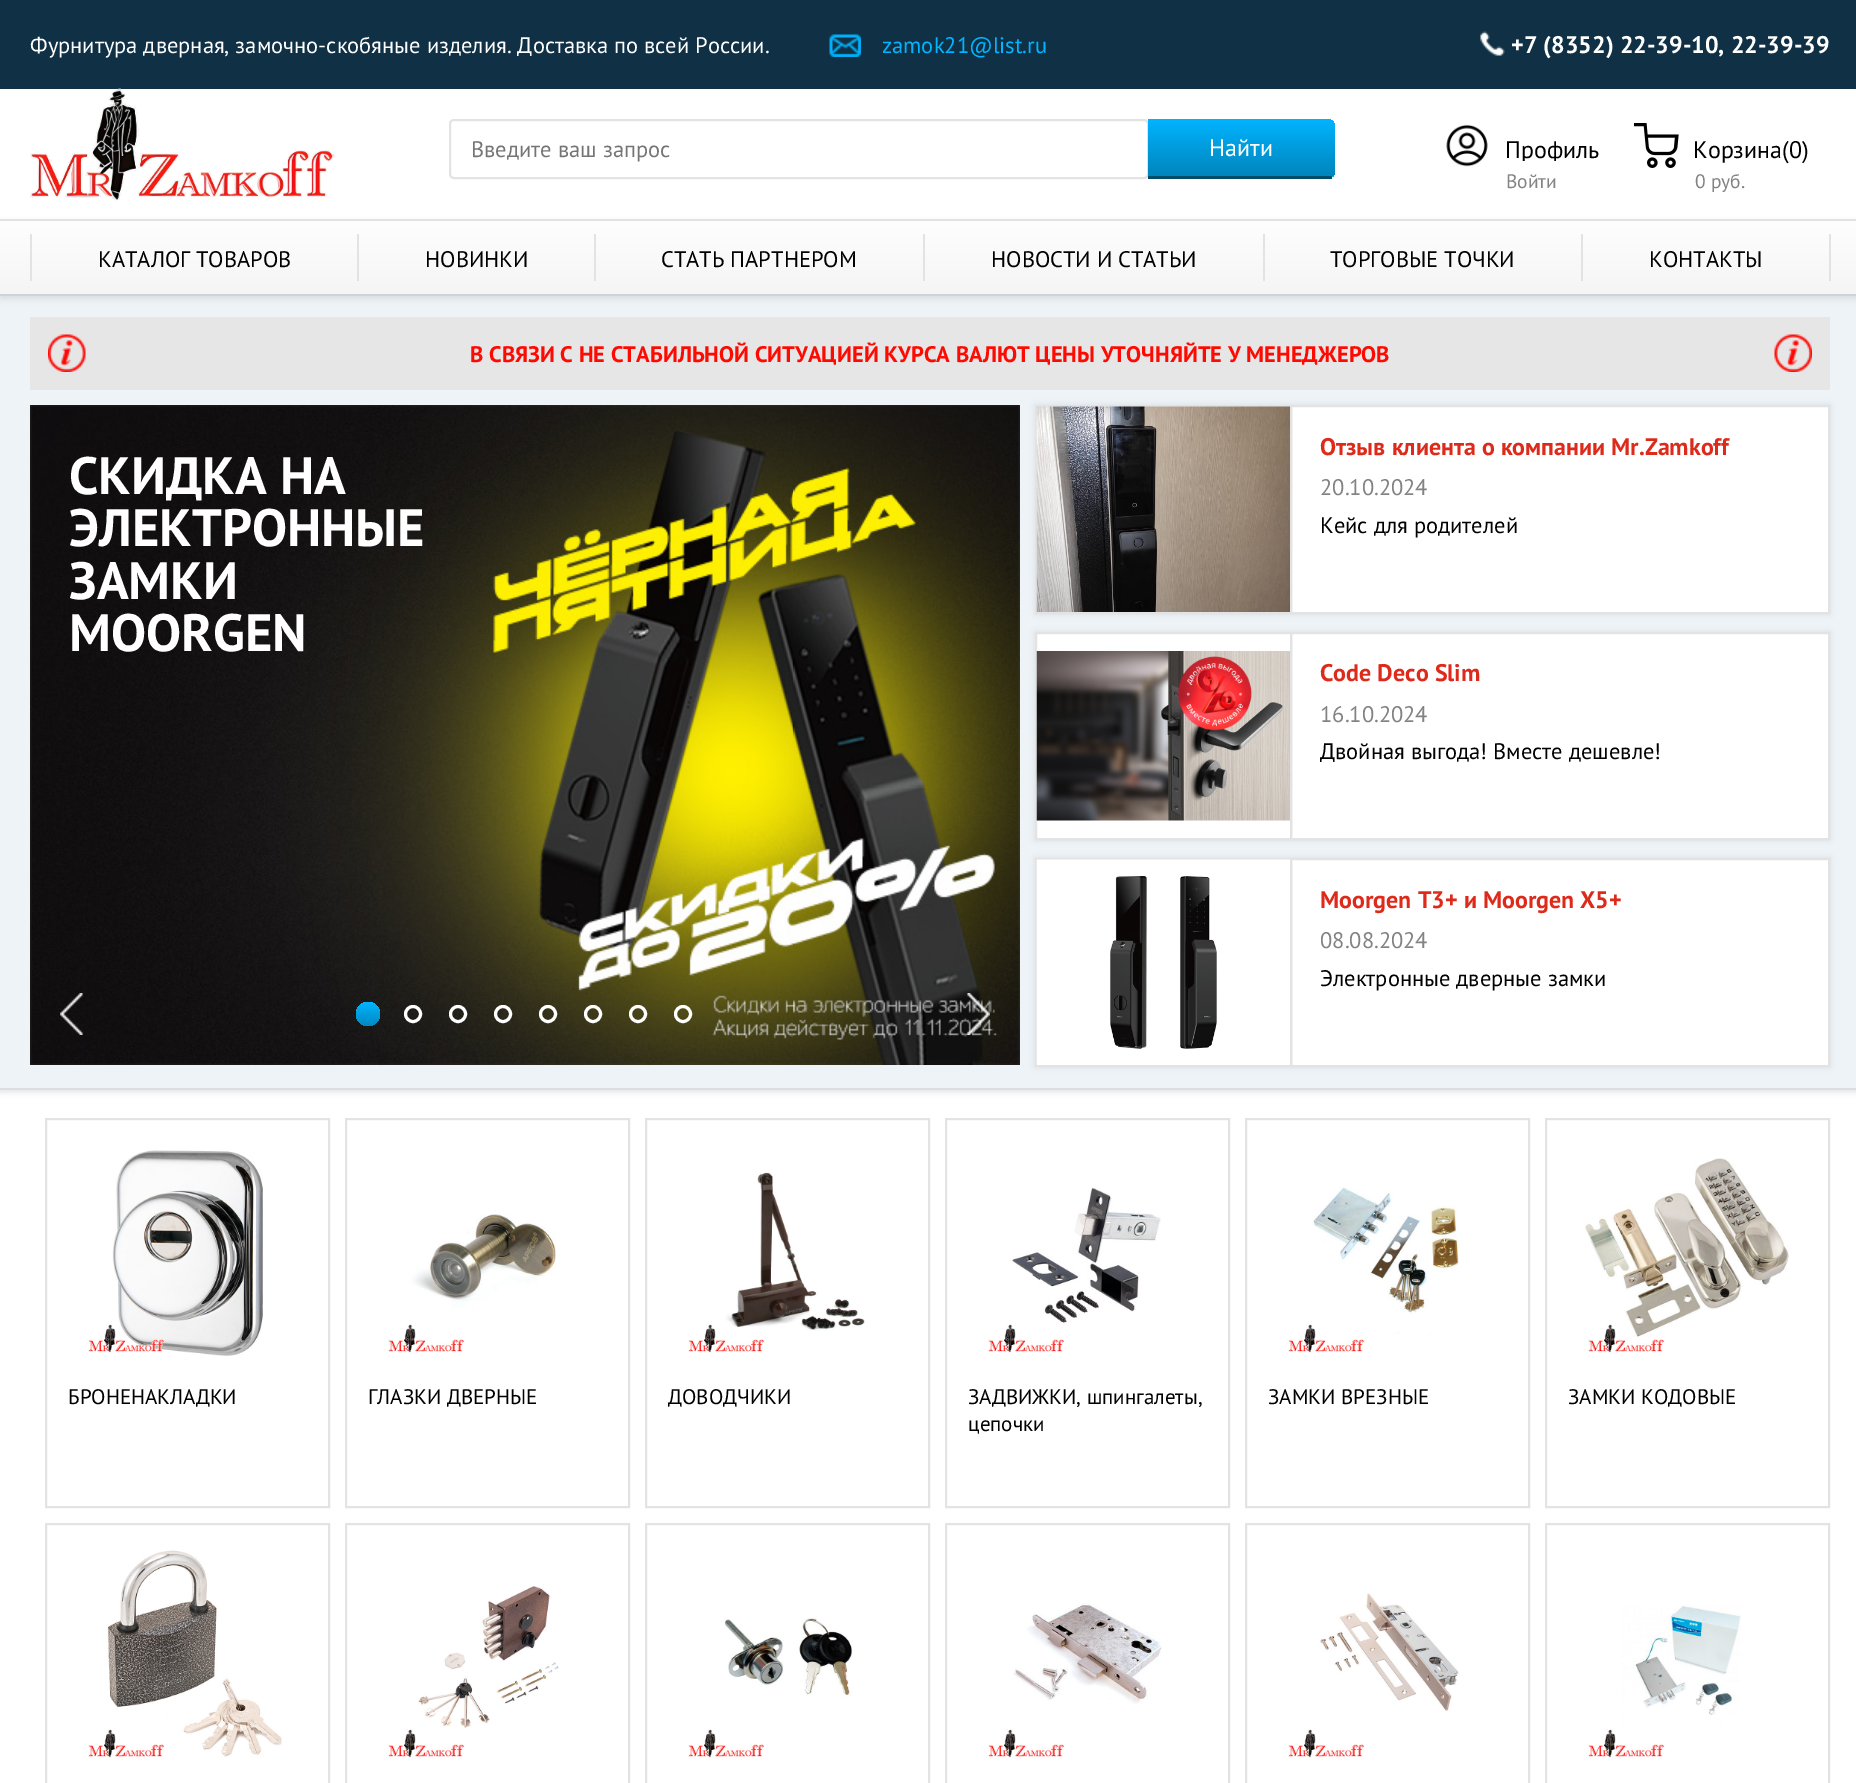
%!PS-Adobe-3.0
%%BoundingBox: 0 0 1856 1783
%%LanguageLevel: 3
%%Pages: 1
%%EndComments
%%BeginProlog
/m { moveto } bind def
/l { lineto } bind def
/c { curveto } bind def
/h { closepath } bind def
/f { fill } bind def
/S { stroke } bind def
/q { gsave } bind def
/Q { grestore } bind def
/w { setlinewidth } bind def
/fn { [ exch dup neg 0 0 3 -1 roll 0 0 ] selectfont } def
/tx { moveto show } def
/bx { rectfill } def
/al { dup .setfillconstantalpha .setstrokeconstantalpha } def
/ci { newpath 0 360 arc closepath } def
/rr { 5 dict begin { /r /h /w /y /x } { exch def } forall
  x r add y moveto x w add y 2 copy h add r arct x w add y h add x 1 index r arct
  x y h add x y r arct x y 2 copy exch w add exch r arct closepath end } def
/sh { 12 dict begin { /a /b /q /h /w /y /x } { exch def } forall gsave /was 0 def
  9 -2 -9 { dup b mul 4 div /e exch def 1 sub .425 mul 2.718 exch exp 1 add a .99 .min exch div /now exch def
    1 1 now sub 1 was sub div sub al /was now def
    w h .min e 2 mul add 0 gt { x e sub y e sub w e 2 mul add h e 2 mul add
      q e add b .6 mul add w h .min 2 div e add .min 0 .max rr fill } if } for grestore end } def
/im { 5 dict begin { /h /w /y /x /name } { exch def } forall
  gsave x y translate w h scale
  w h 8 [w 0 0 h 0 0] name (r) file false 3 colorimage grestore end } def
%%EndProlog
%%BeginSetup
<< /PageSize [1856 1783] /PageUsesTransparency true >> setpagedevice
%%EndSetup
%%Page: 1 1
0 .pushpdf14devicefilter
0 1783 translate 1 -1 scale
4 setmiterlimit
1 setgray
0 0 1856 1783 bx
0.063 0.192 0.271 setrgbcolor
0 0 1856 89 bx
/PTSans-Regular 22.5 fn
1 setgray
(Фурнитура дверная, замочно-скобяные изделия. Доставка по всей России.) 30 53 tx
(image0.raw) 829 34 32 23 im
0 0.706 1 setrgbcolor
(zamok21@list.ru) 882 53 tx
(image1.raw) 1480 31 25 25 im
/PTSans-Bold 24 fn
1 setgray
(+7 \(8352\) 22-39-10, 22-39-39) 1511 53 tx
(image2.raw) 30 88 305 113 im
0.89 setgray
2 w
450 120 698 58 4 rr S
/PTSans-Regular 22.5 fn
0.459 setgray
(Введите ваш запрос) 471 157 tx
q
1148 119 m 1327 119 l 1331.5 119 1335 122.5 1335 127 c 1335 171 l 1335 175.5 1331.5 179 1327 179 c 1148 179 l h clip newpath
q 1148 119 m 1327 119 l 1331.5 119 1335 122.5 1335 127 c 1335 176 l 1148 176 l h clip newpath
<< /ShadingType 2 /ColorSpace /DeviceRGB /Coords [1241 119 1241 176] /Extend [true true] /Function << /FunctionType 2 /Domain [0 1] /C0 [0 0.706 1] /C1 [0 0.522 0.737] /N 1 >> >> shfill Q
q 1332 176 m 1335 176 l 1335 177 l 1332 177 l h clip newpath
<< /ShadingType 2 /ColorSpace /DeviceRGB /Coords [1241 176 1241 233] /Extend [true true] /Function << /FunctionType 2 /Domain [0 1] /C0 [0 0.706 1] /C1 [0 0.522 0.737] /N 1 >> >> shfill Q
Q
0 0.298 0.42 setrgbcolor
1148 176 184 3 bx
/PTSans-Regular 24 fn
1 setgray
(Найти) 1209 156 tx
(image3.raw) 1446 124 42 43 im
q
1505 137 94 24 rectclip
0 setgray
(Профиль) 1505 158 tx
Q
/PTSans-Regular 19.5 fn
0.514 setgray
(Войти) 1506 188 tx
(image4.raw) 1634 123 45 45 im
/PTSans-Regular 24 fn
0 setgray
(Корзина\(0\)) 1693 158 tx
/PTSans-Regular 19.5 fn
0.514 setgray
(0 руб.) 1695 188 tx
0.808 0.827 0.851 setrgbcolor
0 299 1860 793 0 3 0.65 sh
0.933 0.953 0.969 setrgbcolor
0 296 1856 792 bx
0.808 0.827 0.851 setrgbcolor
0 222 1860 77 0 3 0.65 sh
q 0 221 m 1856 221 l 1856 294 l 0 294 l h clip newpath
<< /ShadingType 2 /ColorSpace /DeviceRGB /Coords [930 220 930 294] /Extend [true true] /Function << /FunctionType 2 /Domain [0 1] /C0 [0.996 0.996 0.996] /C1 [0.961 0.961 0.961] /N 1 >> >> shfill Q
0.89 setgray
0 219 1856 2 bx
0.808 0.827 0.851 setrgbcolor
0 294 1856 2 bx
0.89 setgray
30 234 2 47 bx
/PTSans-Regular 22.5 fn
0 setgray
(КАТАЛОГ ТОВАРОВ) 98 267 tx
0.89 setgray
357 234 2 47 bx
0 setgray
(НОВИНКИ) 425 267 tx
0.89 setgray
594 234 2 47 bx
0 setgray
(СТАТЬ ПАРТНЕРОМ) 661 267 tx
0.89 setgray
923 234 2 47 bx
0 setgray
(НОВОСТИ И СТАТЬИ) 991 267 tx
0.89 setgray
1263 234 2 47 bx
0 setgray
(ТОРГОВЫЕ ТОЧКИ) 1330 267 tx
0.89 setgray
1581 234 2 47 bx
0 setgray
(КОНТАКТЫ) 1649 267 tx
0.89 setgray
1829 234 2 47 bx
0.863 0.867 0.875 setrgbcolor
0 1088 1856 2 bx
0.902 setgray
30 317 1800 73 bx
(image5.raw) 48 334 38 38 im
/PTSans-Bold 22.5 fn
0.992 0.039 0.008 setrgbcolor
(В СВЯЗИ С НЕ СТАБИЛЬНОЙ СИТУАЦИЕЙ КУРСА ВАЛЮТ ЦЕНЫ УТОЧНЯЙТЕ У МЕНЕДЖЕРОВ) 470 362 tx
(image6.raw) 1774 334 38 38 im
(image7.raw) 30 405 990 660 im
/PTSans-Bold 52.5 fn
1 setgray
(СКИДКА НА) 69 494 tx
(ЭЛЕКТРОННЫЕ) 69 546 tx
(ЗАМКИ) 69 599 tx
(MOORGEN) 69 651 tx
(image8.raw) 60 993 23 42 im
(image9.raw) 967 993 23 42 im
q 368 1014 12 ci clip newpath
<< /ShadingType 2 /ColorSpace /DeviceRGB /Coords [368 1002 368 1026] /Extend [true true] /Function << /FunctionType 2 /Domain [0 1] /C0 [0 0.706 1] /C1 [0 0.533 0.757] /N 1 >> >> shfill Q
3 w
413 1014 7.5 ci S
458 1014 7.5 ci S
503 1014 7.5 ci S
548 1014 7.5 ci S
593 1014 7.5 ci S
638 1014 7.5 ci S
683 1014 7.5 ci S
0.808 0.827 0.851 setrgbcolor
1035 405 795 209 0 3 0.65 sh
1 setgray
1291 406 m 1829 406 l 1829 613 l 1291 613 l h q f Q
0.89 setgray
2 w
S
1036 406 255 207 rectstroke
(image10.raw) 1036 406 254 206 im
/PTSans-Bold 24 fn
0.867 0.165 0.106 setrgbcolor
(Отзыв клиента о компании Mr.Zamkoff) 1320 455 tx
/PTSans-Regular 22.5 fn
0.514 setgray
(20.10.2024) 1320 495 tx
0 setgray
(Кейс для родителей) 1320 533 tx
0.808 0.827 0.851 setrgbcolor
1035 632 795 208 0 3 0.65 sh
1 setgray
1291 633 m 1829 633 l 1829 839 l 1291 839 l h q f Q
0.89 setgray
S
1 setgray
1036 633 m 1291 633 l 1291 839 l 1036 839 l h q f Q
0.89 setgray
S
(image11.raw) 1036 651 254 170 im
/PTSans-Bold 24 fn
0.867 0.165 0.106 setrgbcolor
(Code Deco Slim) 1320 681 tx
/PTSans-Regular 22.5 fn
0.514 setgray
(16.10.2024) 1320 722 tx
0 setgray
(Двойная выгода! Вместе дешевле!) 1320 759 tx
0.808 0.827 0.851 setrgbcolor
1035 858 795 209 0 3 0.65 sh
1 setgray
1291 859 m 1829 859 l 1829 1066 l 1291 1066 l h q f Q
0.89 setgray
S
1036 859 255 207 rectstroke
(image12.raw) 1036 859 254 206 im
/PTSans-Bold 24 fn
0.867 0.165 0.106 setrgbcolor
(Moorgen T3+ и Moorgen X5+) 1320 908 tx
/PTSans-Regular 22.5 fn
0.514 setgray
(08.08.2024) 1320 948 tx
0 setgray
(Электронные дверные замки) 1320 986 tx
0.89 setgray
46 1119 283 388 rectstroke
(image13.raw) 88 1150 175 206 im
/PTSans-Regular 21 fn
0 setgray
(БРОНЕНАКЛАДКИ) 68 1404 tx
0.89 setgray
346 1119 283 388 rectstroke
(image14.raw) 388 1214 168 139 im
0 setgray
(ГЛАЗКИ ДВЕРНЫЕ) 368 1404 tx
0.89 setgray
646 1119 283 388 rectstroke
(image15.raw) 688 1172 177 181 im
q
668 1383 123 140 rectclip
0 setgray
(ДОВОДЧИКИ) 668 1404 tx
Q
946 1119 283 388 rectstroke
(image16.raw) 988 1187 173 166 im
0 setgray
(ЗАДВИЖКИ, шпингалеты,) 968 1404 tx
(цепочки) 968 1431 tx
0.89 setgray
1246 1119 283 388 rectstroke
(image17.raw) 1288 1186 171 167 im
0 setgray
(ЗАМКИ ВРЕЗНЫЕ) 1268 1404 tx
0.89 setgray
1546 1119 283 388 rectstroke
(image18.raw) 1585 1158 204 195 im
0 setgray
(ЗАМКИ КОДОВЫЕ) 1568 1404 tx
0.89 setgray
46 1524 283 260 rectstroke
(image19.raw) 88 1550 194 208 im
346 1524 283 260 rectstroke
(image20.raw) 388 1586 171 172 im
646 1524 283 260 rectstroke
(image21.raw) 688 1618 165 140 im
946 1524 283 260 rectstroke
(image22.raw) 988 1603 174 155 im
1246 1524 283 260 rectstroke
(image23.raw) 1288 1593 171 165 im
1546 1524 283 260 rectstroke
(image24.raw) 1588 1605 153 153 im
.poppdf14devicefilter showpage
%%EOF
